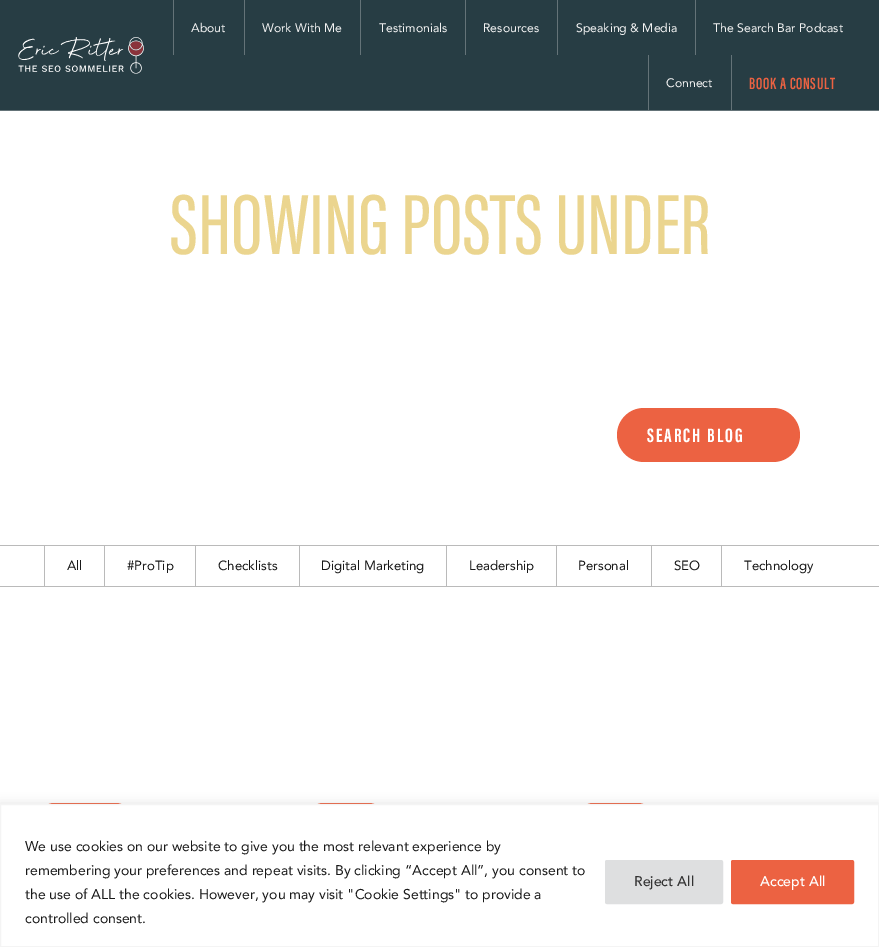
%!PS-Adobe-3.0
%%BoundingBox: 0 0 879 947
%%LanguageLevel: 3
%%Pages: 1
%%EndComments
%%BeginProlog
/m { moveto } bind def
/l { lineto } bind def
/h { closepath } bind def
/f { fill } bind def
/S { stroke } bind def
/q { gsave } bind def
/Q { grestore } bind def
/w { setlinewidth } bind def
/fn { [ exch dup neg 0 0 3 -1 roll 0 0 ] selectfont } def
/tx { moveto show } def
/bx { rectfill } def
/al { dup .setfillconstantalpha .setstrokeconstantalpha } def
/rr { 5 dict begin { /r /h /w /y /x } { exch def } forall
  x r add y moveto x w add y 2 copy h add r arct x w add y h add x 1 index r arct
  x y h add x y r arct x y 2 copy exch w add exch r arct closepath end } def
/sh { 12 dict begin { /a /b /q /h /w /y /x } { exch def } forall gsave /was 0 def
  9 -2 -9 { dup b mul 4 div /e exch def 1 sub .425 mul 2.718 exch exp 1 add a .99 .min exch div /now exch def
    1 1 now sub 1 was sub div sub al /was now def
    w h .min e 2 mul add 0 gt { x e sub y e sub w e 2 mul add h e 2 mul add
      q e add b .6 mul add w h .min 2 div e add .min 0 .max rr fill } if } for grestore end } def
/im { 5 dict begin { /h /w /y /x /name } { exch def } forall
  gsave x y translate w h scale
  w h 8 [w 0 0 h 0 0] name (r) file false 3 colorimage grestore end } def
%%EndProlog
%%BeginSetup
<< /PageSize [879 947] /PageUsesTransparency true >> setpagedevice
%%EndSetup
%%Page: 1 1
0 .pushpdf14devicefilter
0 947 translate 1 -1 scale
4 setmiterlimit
1 setgray
0 0 879 947 bx
0.153 0.239 0.267 setrgbcolor
0 0 879 110 bx
0.392 0.451 0.471 setrgbcolor
0 110 879 1 bx
(image0.raw) 18 37 126 37 im
173 0 1 55 bx
/Avenir-Regular 12.25 fn
0.949 setgray
(About) 191 32 tx
0.392 0.451 0.471 setrgbcolor
244 0 1 55 bx
0.949 setgray
(Work With Me) 262 32 tx
0.392 0.451 0.471 setrgbcolor
360 0 1 55 bx
0.949 setgray
(Testimonials) 379 32 tx
0.392 0.451 0.471 setrgbcolor
465 0 1 55 bx
0.949 setgray
(Resources) 483 32 tx
0.392 0.451 0.471 setrgbcolor
557 0 1 55 bx
0.949 setgray
(Speaking & Media) 576 32 tx
0.392 0.451 0.471 setrgbcolor
695 0 1 55 bx
0.949 setgray
(The Search Bar Podcast) 713 32 tx
0.392 0.451 0.471 setrgbcolor
648 55 1 55 bx
0.949 setgray
(Connect) 666 87 tx
0.392 0.451 0.471 setrgbcolor
731 55 1 55 bx
/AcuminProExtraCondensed-SemiBold 16.75 fn
0.925 0.384 0.259 setrgbcolor
749 89 m 0.75 0 (BOOK A CONSULT) ashow
/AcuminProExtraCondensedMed-Medium 88 fn
0.922 0.835 0.561 setrgbcolor
(SHOWING POSTS UNDER) 170 254 tx
0.925 0.384 0.259 setrgbcolor
617 408 183 54 27 rr f
/AcuminProExtraCondensed-Bold 20 fn
1 setgray
647 442 m 2 0 (SEARCH BLOG) ashow
0.729 setgray
0 545 879 1 bx
0 586 879 1 bx
44 546 1 40 bx
/Avenir-Regular 13.25 fn
0.098 setgray
(All) 67 570 tx
0.729 setgray
104 546 1 40 bx
0.098 setgray
(#ProTip) 127 570 tx
0.729 setgray
195 546 1 40 bx
0.098 setgray
(Checklists) 218 570 tx
0.729 setgray
299 546 1 40 bx
0.098 setgray
(Digital Marketing) 321 570 tx
0.729 setgray
446 546 1 40 bx
0.098 setgray
(Leadership) 469 570 tx
0.729 setgray
556 546 1 40 bx
0.098 setgray
(Personal) 578 570 tx
0.729 setgray
651 546 1 40 bx
0.098 setgray
(SEO) 674 570 tx
0.729 setgray
721 546 1 40 bx
0.098 setgray
(Technology) 744 570 tx
0.925 0.384 0.259 setrgbcolor
42.5 803.5 85 22 11 rr S
311.5 803.5 69 22 11 rr S
581.5 803.5 68 22 11 rr S
0.675 0.671 0.671 setrgbcolor
0 803 879 143 0 5 0.3 sh
1 setgray
0.5 804.5 m 878.5 804.5 l 878.5 946.5 l 0.5 946.5 l h q f Q
0.957 setgray
S
/Avenir-Regular 14 fn
0.098 setgray
(We use cookies on our website to give you the most relevant experience by) 25 851 tx
(remembering your preferences and repeat visits. By clicking “Accept All”, you consent to) 25 875 tx
(the use of ALL the cookies. However, you may visit "Cookie Settings" to provide a) 25 899 tx
(controlled consent.) 25 923 tx
0.871 0.875 0.878 setrgbcolor
606 861 116 42 1 rr q f Q
2 w
S
/Avenir-Medium 14 fn
0.2 setgray
(Reject All) 634 886 tx
0.925 0.384 0.259 setrgbcolor
732 861 121 42 1 rr q f Q
S
1 setgray
(Accept All) 760 886 tx
.poppdf14devicefilter showpage
%%EOF
